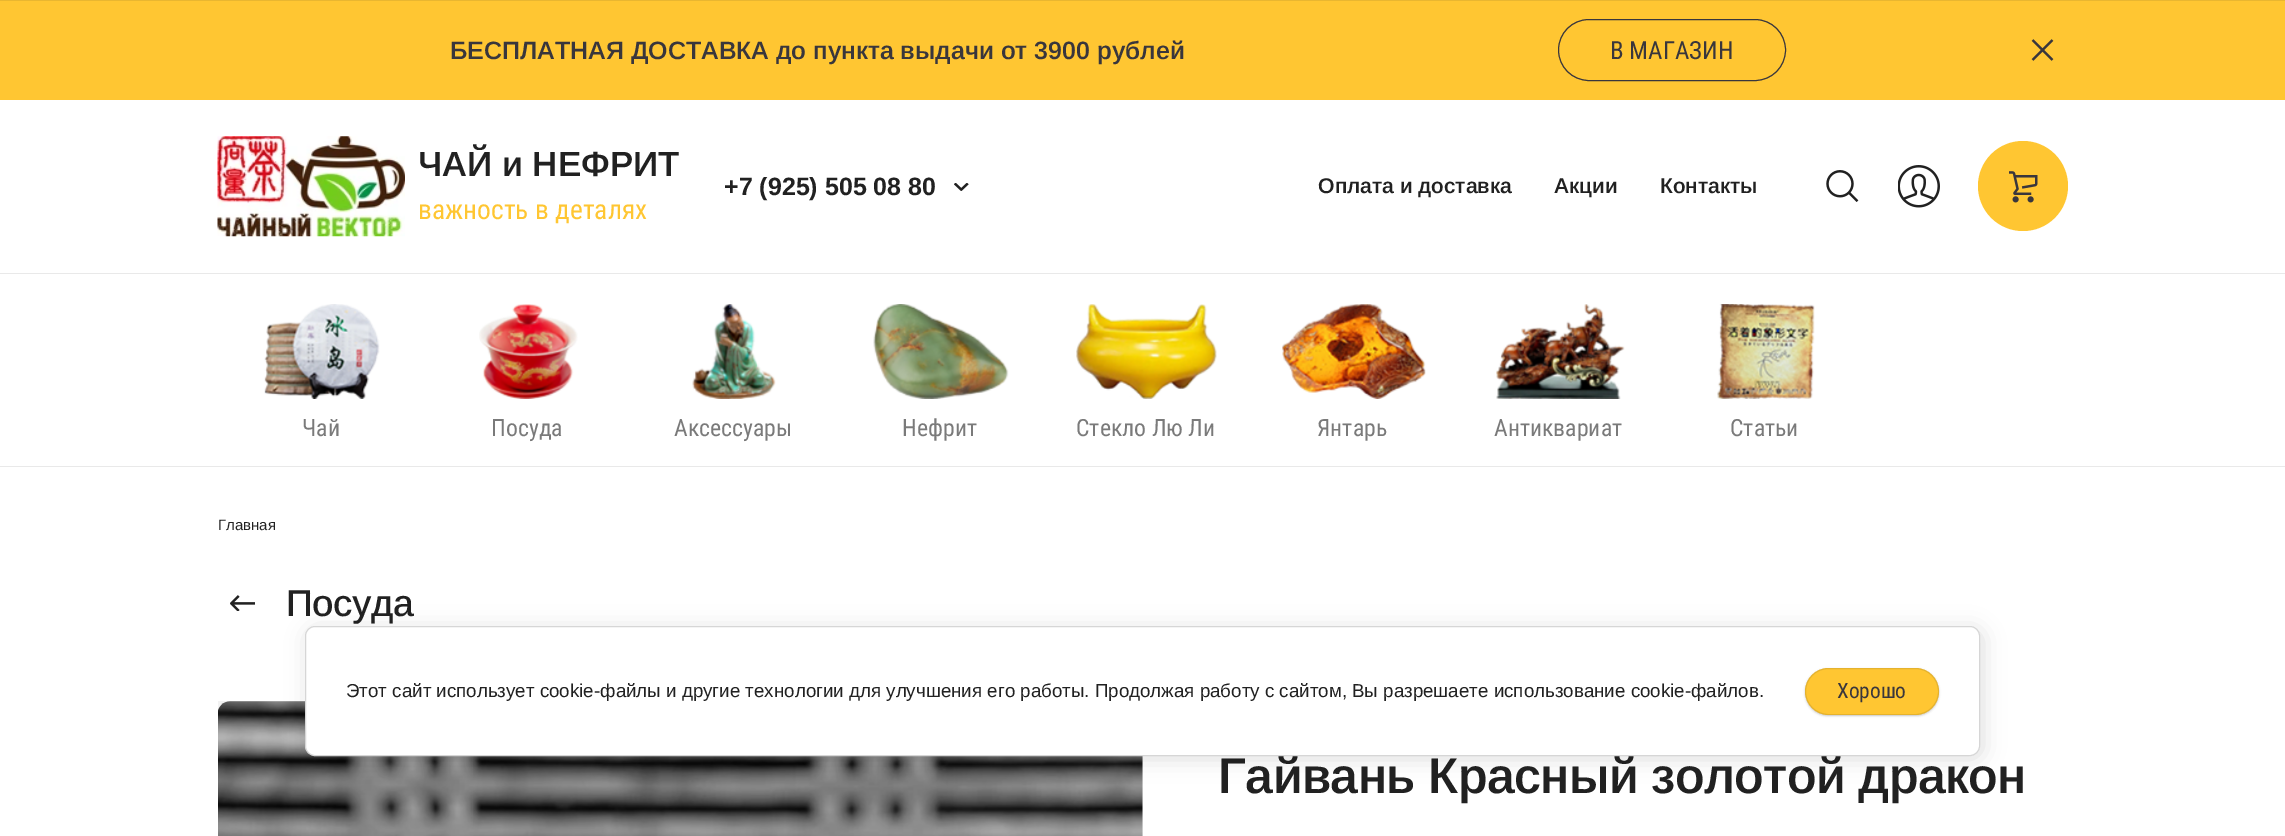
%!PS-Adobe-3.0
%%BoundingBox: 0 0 2285 836
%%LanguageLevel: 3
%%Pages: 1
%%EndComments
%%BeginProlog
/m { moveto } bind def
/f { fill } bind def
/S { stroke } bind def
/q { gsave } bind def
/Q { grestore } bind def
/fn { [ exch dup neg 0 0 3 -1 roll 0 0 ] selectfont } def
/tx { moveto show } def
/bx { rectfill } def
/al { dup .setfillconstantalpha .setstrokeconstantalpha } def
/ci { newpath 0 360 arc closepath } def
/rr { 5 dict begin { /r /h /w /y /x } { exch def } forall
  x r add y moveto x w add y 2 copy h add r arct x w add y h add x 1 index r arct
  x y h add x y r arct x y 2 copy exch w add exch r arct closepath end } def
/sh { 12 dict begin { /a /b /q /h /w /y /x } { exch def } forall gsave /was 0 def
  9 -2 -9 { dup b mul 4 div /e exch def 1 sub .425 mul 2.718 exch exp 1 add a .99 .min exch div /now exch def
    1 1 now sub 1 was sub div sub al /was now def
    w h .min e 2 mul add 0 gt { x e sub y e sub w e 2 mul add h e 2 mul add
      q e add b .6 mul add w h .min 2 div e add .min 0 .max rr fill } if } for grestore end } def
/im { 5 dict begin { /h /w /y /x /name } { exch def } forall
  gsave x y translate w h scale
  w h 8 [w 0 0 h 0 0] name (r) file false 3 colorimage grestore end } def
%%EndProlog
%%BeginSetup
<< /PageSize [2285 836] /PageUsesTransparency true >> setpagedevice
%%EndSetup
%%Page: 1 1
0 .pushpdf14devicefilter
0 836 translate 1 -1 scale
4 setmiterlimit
1 setgray
0 0 2285 836 bx
0.914 0.714 0.188 setrgbcolor
0 0 2285 1 bx
1 0.776 0.196 setrgbcolor
0 1 2285 99 bx
/Arimo-SemiBold 25 fn
0.224 0.212 0.235 setrgbcolor
(БЕСПЛАТНАЯ ДОСТАВКА до пункта выдачи от 3900 рублей) 450 59 tx
1558.5 19.5 227 61 30.5 rr S
/RobotoCondensed-Regular 25 fn
(В МАГАЗИН) 1610 59 tx
(image0.raw) 2031 39 23 22 im
0.914 setgray
0 273 2285 1 bx
(image1.raw) 217 136 188 101 im
/Arimo-SemiBold 35 fn
0.129 setgray
(ЧАЙ и НЕФРИТ) 418 176 tx
/RobotoCondensed-Regular 27.5 fn
1 0.776 0.196 setrgbcolor
(важность в деталях) 418 219 tx
/Arimo-Bold 25 fn
0.129 setgray
(+7 \(925\) 505 08 80) 724 195 tx
(image2.raw) 954 183 15 8 im
/Arimo-SemiBold 21.25 fn
(Оплата и доставка) 1318 193 tx
(Акции) 1554 193 tx
(Контакты) 1660 193 tx
(image3.raw) 1826 170 33 32 im
(image4.raw) 1898 165 42 43 im
1 0.776 0.196 setrgbcolor
2023 186 45 ci f
(image5.raw) 2009 171 29 32 im
(image6.raw) 264 304 116 95 im
/RobotoCondensed-Regular 23.75 fn
0.478 setgray
(Чай) 302 436 tx
(image7.raw) 479 304 99 95 im
(Посуда) 491 436 tx
(image8.raw) 692 304 84 95 im
(Аксессуары) 674 436 tx
(image9.raw) 873 304 136 95 im
(Нефрит) 902 436 tx
(image10.raw) 1076 304 141 95 im
(Стекло Лю Ли) 1076 436 tx
(image11.raw) 1282 304 144 95 im
(Янтарь) 1317 436 tx
(image12.raw) 1496 304 129 95 im
(Антиквариат) 1494 436 tx
(image13.raw) 1717 304 98 95 im
(Статьи) 1730 436 tx
0.914 setgray
0 466 2285 1 bx
/Arimo-Regular 15 fn
0.129 setgray
(Главная) 218 530 tx
(image14.raw) 230 595 25 16 im
/Arimo-Medium 37.5 fn
286 616 m -0.5 0 (Посуда) ashow
(image15.raw) 218 701 925 135 im
0.05 al
0 setgray
218 701 925 135 bx
/Arimo-SemiBold 50 fn
1 al
0.129 setgray
1218 793 m -0.6 0 (Гайвань Красный золотой дракон) ashow
0 setgray
308 629 1675 130 10 11 0.14 sh
1 setgray
305.5 626.5 1674 129 9.5 rr q f Q
0.839 setgray
S
/Arimo-Regular 18.75 fn
0.129 setgray
(Этот сайт использует cookie-файлы и другие технологии для улучшения его работы. Продолжая работу с сайтом, Вы разрешаете использование cookie-файлов.) 346 697 tx
0 setgray
1805 669 134 47 23.5 1 0.2 sh
1 0.776 0.196 setrgbcolor
1805 668 134 47 23.5 rr f
0.1 al
0 setgray
1805.5 668.5 133 46 23 rr S
/RobotoCondensed-Regular 21.25 fn
1 al
0.224 0.212 0.235 setrgbcolor
(Хорошо) 1837 698 tx
.poppdf14devicefilter showpage
%%EOF
